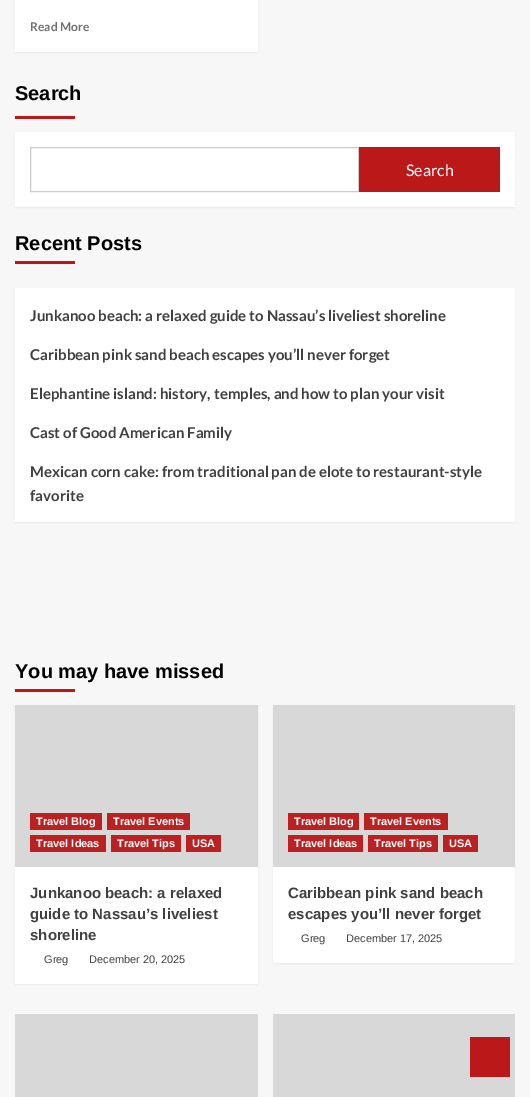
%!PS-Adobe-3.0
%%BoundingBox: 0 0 530 1097
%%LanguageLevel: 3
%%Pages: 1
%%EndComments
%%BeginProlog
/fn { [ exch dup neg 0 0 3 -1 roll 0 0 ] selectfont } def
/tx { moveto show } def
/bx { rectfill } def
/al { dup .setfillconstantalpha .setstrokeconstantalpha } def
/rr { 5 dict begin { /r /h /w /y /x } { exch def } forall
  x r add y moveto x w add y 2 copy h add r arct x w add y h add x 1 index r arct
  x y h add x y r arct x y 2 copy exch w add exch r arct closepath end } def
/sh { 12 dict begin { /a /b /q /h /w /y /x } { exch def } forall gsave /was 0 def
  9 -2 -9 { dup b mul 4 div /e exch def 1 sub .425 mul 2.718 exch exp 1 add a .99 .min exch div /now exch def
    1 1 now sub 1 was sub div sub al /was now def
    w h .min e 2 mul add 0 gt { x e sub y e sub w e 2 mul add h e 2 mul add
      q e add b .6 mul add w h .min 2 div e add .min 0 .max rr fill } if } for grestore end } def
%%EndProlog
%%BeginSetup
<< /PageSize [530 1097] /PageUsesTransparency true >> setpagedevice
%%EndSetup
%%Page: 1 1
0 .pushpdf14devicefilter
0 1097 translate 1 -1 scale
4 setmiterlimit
0.969 setgray
0 0 530 1097 bx
0 setgray
15 -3 243 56 0 1 0.05 sh
1 setgray
15 0 243 52 bx
/Lato-Bold 12 fn
0.439 setgray
(Read More) 30 31 tx
/LiberationSans-Bold 20 fn
0 setgray
(Search) 15 100 tx
0.733 0.098 0.098 setrgbcolor
15 116 60 3 bx
0 setgray
15 133 500 75 0 1 0.05 sh
1 setgray
15 132 500 75 bx
0.8 setgray
30.5 147.5 328 44 rectstroke
0.733 0.098 0.098 setrgbcolor
359 147 141 45 bx
/Lato-Regular 16 fn
1 setgray
(Search) 406 176 tx
/LiberationSans-Bold 20 fn
0 setgray
(Recent Posts) 15 250 tx
0.733 0.098 0.098 setrgbcolor
15 261 60 3 bx
0 setgray
15 289 500 234 0 1 0.05 sh
1 setgray
15 288 500 234 bx
/Lato-Bold 15 fn
0.251 setgray
(Junkanoo beach: a relaxed guide to Nassau’s liveliest shoreline) 30 321 tx
(Caribbean pink sand beach escapes you’ll never forget) 30 360 tx
(Elephantine island: history, temples, and how to plan your visit) 30 399 tx
(Cast of Good American Family) 30 438 tx
(Mexican corn cake: from traditional pan de elote to restaurant-style) 30 477 tx
(favorite) 30 501 tx
/LiberationSans-Bold 20 fn
0 setgray
(You may have missed) 15 678 tx
0.733 0.098 0.098 setrgbcolor
15 689 60 3 bx
0 setgray
15 706 243 279 0 1 0.05 sh
1 setgray
15 867 243 117 bx
0.847 setgray
15 705 243 162 bx
0.737 0.129 0.129 setrgbcolor
30 813 72 17 bx
/LiberationSans-Bold 11 fn
1 setgray
(Travel Blog) 36 825 tx
0.737 0.129 0.129 setrgbcolor
107 813 83 17 bx
1 setgray
(Travel Events) 113 825 tx
0.737 0.129 0.129 setrgbcolor
30 835 76 17 bx
1 setgray
(Travel Ideas) 36 847 tx
0.737 0.129 0.129 setrgbcolor
111 835 70 17 bx
1 setgray
(Travel Tips) 117 847 tx
0.737 0.129 0.129 setrgbcolor
186 835 35 17 bx
1 setgray
(USA) 192 847 tx
/LiberationSans-Bold 15 fn
0.251 setgray
(Junkanoo beach: a relaxed) 30 898 tx
(guide to Nassau’s liveliest) 30 919 tx
(shoreline) 30 940 tx
/LiberationSans-Regular 11 fn
(Greg) 44 963 tx
(December 20, 2025) 89 963 tx
0 setgray
273 706 242 258 0 1 0.05 sh
1 setgray
273 867 242 96 bx
0.847 setgray
273 705 242 162 bx
0.737 0.129 0.129 setrgbcolor
288 813 71 17 bx
/LiberationSans-Bold 11 fn
1 setgray
(Travel Blog) 294 825 tx
0.737 0.129 0.129 setrgbcolor
364 813 84 17 bx
1 setgray
(Travel Events) 370 825 tx
0.737 0.129 0.129 setrgbcolor
288 835 75 17 bx
1 setgray
(Travel Ideas) 294 847 tx
0.737 0.129 0.129 setrgbcolor
368 835 70 17 bx
1 setgray
(Travel Tips) 374 847 tx
0.737 0.129 0.129 setrgbcolor
443 835 35 17 bx
1 setgray
(USA) 449 847 tx
/LiberationSans-Bold 15 fn
0.251 setgray
(Caribbean pink sand beach) 288 898 tx
(escapes you’ll never forget) 288 919 tx
/LiberationSans-Regular 11 fn
(Greg) 301 942 tx
(December 17, 2025) 346 942 tx
0.847 setgray
15 1014 243 83 bx
273 1014 242 83 bx
0.733 0.098 0.098 setrgbcolor
470 1037 40 40 bx
.poppdf14devicefilter showpage
%%EOF
